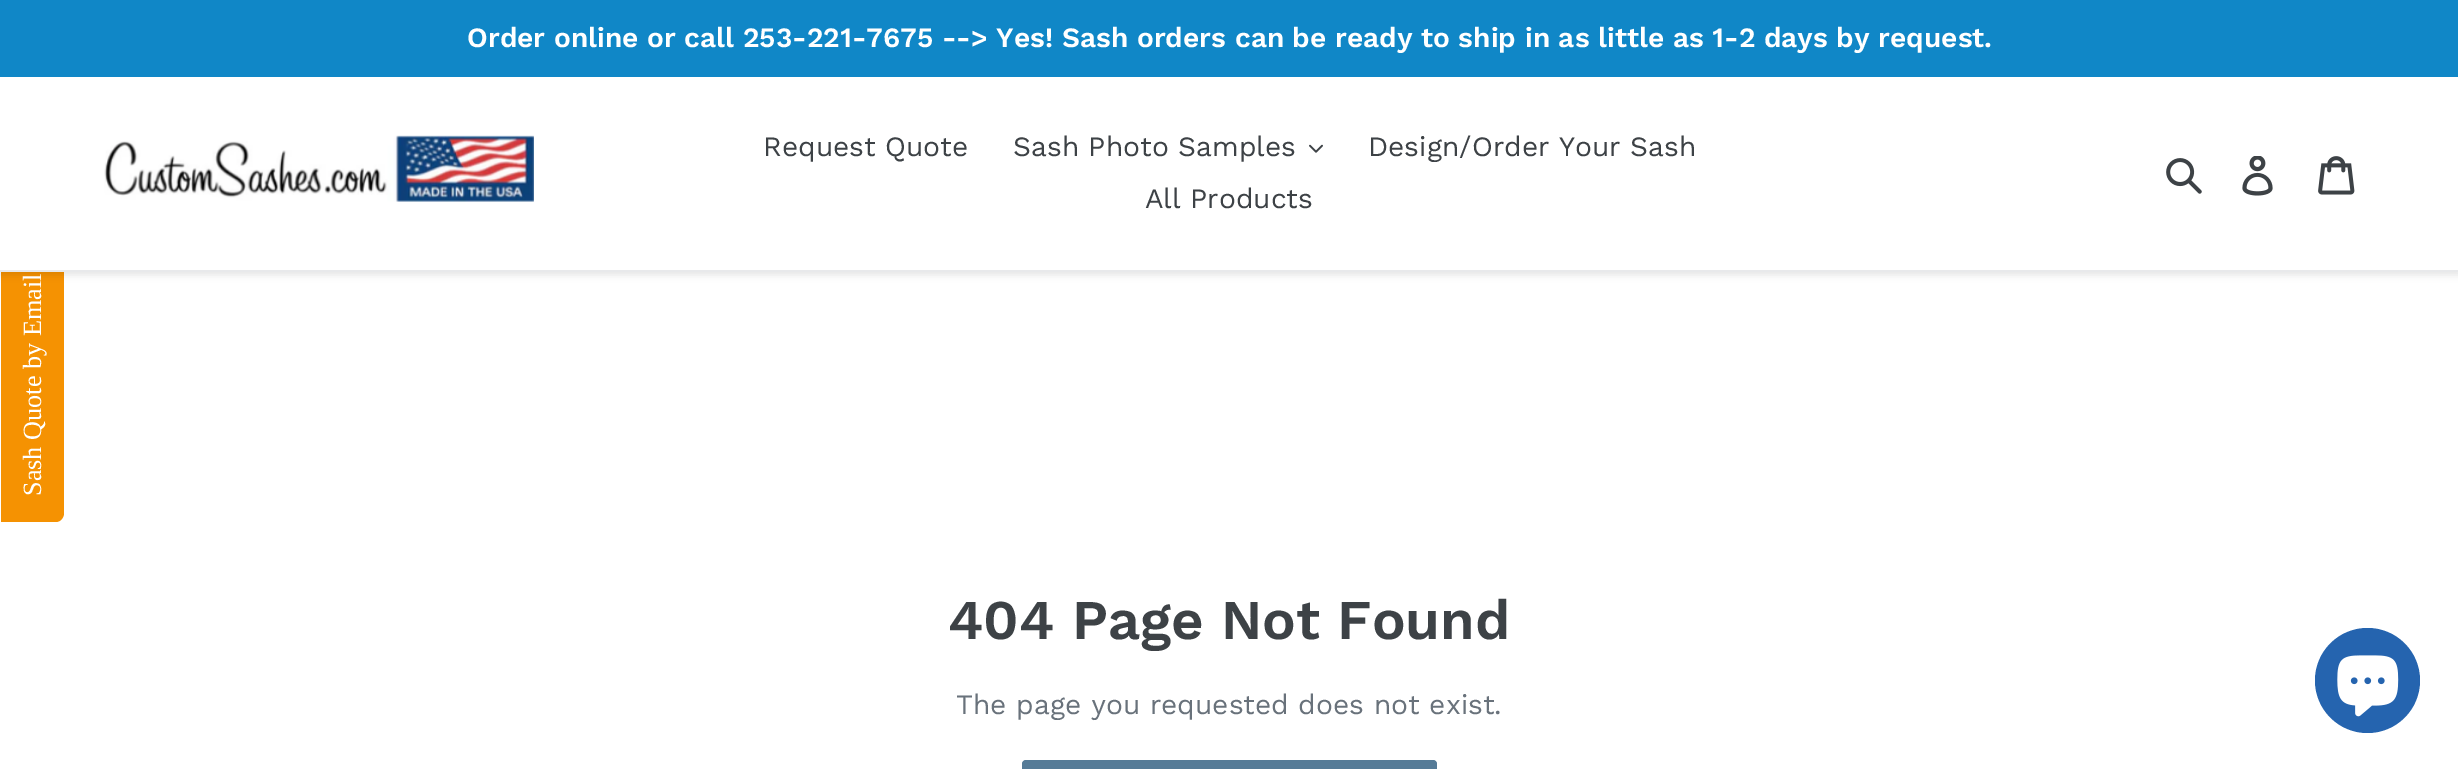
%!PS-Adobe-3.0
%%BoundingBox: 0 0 2458 769
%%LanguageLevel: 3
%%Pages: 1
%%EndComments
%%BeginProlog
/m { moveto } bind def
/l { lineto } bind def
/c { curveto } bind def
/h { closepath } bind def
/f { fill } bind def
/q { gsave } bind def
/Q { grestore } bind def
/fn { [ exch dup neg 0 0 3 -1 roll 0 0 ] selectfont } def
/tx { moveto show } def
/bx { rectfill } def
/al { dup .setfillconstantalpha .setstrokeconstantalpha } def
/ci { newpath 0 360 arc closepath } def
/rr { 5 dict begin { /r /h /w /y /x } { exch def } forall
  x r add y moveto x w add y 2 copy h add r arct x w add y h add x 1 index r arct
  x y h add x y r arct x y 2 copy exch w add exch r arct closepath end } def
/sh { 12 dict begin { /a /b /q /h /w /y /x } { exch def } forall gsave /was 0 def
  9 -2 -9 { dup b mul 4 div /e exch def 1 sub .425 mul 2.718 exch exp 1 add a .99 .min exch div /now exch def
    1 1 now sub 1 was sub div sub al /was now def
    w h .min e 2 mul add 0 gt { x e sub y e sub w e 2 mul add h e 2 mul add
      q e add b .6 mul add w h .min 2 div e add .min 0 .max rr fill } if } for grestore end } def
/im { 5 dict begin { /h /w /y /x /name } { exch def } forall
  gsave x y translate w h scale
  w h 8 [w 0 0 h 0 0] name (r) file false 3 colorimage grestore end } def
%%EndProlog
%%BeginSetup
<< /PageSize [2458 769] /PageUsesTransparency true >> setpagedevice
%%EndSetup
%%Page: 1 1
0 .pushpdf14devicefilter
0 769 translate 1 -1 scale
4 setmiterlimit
1 setgray
0 0 2458 769 bx
0.961 0.573 0.008 setrgbcolor
1 522 m 1 247 l 56 247 l 60 247 64 251 64 256 c 64 513 l 64 518 60 522 56 522 c h f
0 setgray
0 4 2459 271 0 3.5 0.1 sh
1 setgray
0 77 2458 193 bx
0.063 0.529 0.78 setrgbcolor
0 0 2458 77 bx
/WorkSans-SemiBold 28 fn
1 setgray
(Order online or call 253-221-7675 --> Yes! Sash orders can be ready to ship in as little as 1-2 days by request.) 467 47 tx
0.91 0.914 0.922 setrgbcolor
0 270 2458 2 bx
(image0.raw) 104 135 430 67 im
/WorkSans-Regular 28 fn
0.239 0.259 0.275 setrgbcolor
(Request Quote) 763 156 tx
(Sash Photo Samples) 1013 156 tx
(image1.raw) 1309 144 14 9 im
(Design/Order Your Sash) 1368 156 tx
(All Products) 1145 208 tx
(image2.raw) 2166 158 36 36 im
(image3.raw) 2242 156 31 40 im
(image4.raw) 2318 156 37 39 im
/LiberationSerif-Regular 26.25 fn
1 setgray
q 41 496 translate -90 rotate 0 0 m (Sash Quote by Email) show Q
/WorkSans-SemiBold 56 fn
0.239 0.259 0.275 setrgbcolor
(404 Page Not Found) 948 639 tx
/WorkSans-Regular 28 fn
0.412 0.447 0.482 setrgbcolor
(The page you requested does not exist.) 956 714 tx
0.333 0.482 0.592 setrgbcolor
1022 760 415 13 4 rr f
0.145 0.392 0.686 setrgbcolor
2367.5 680.5 52.5 ci f
(image5.raw) 2337 655 62 62 im
.poppdf14devicefilter showpage
%%EOF
